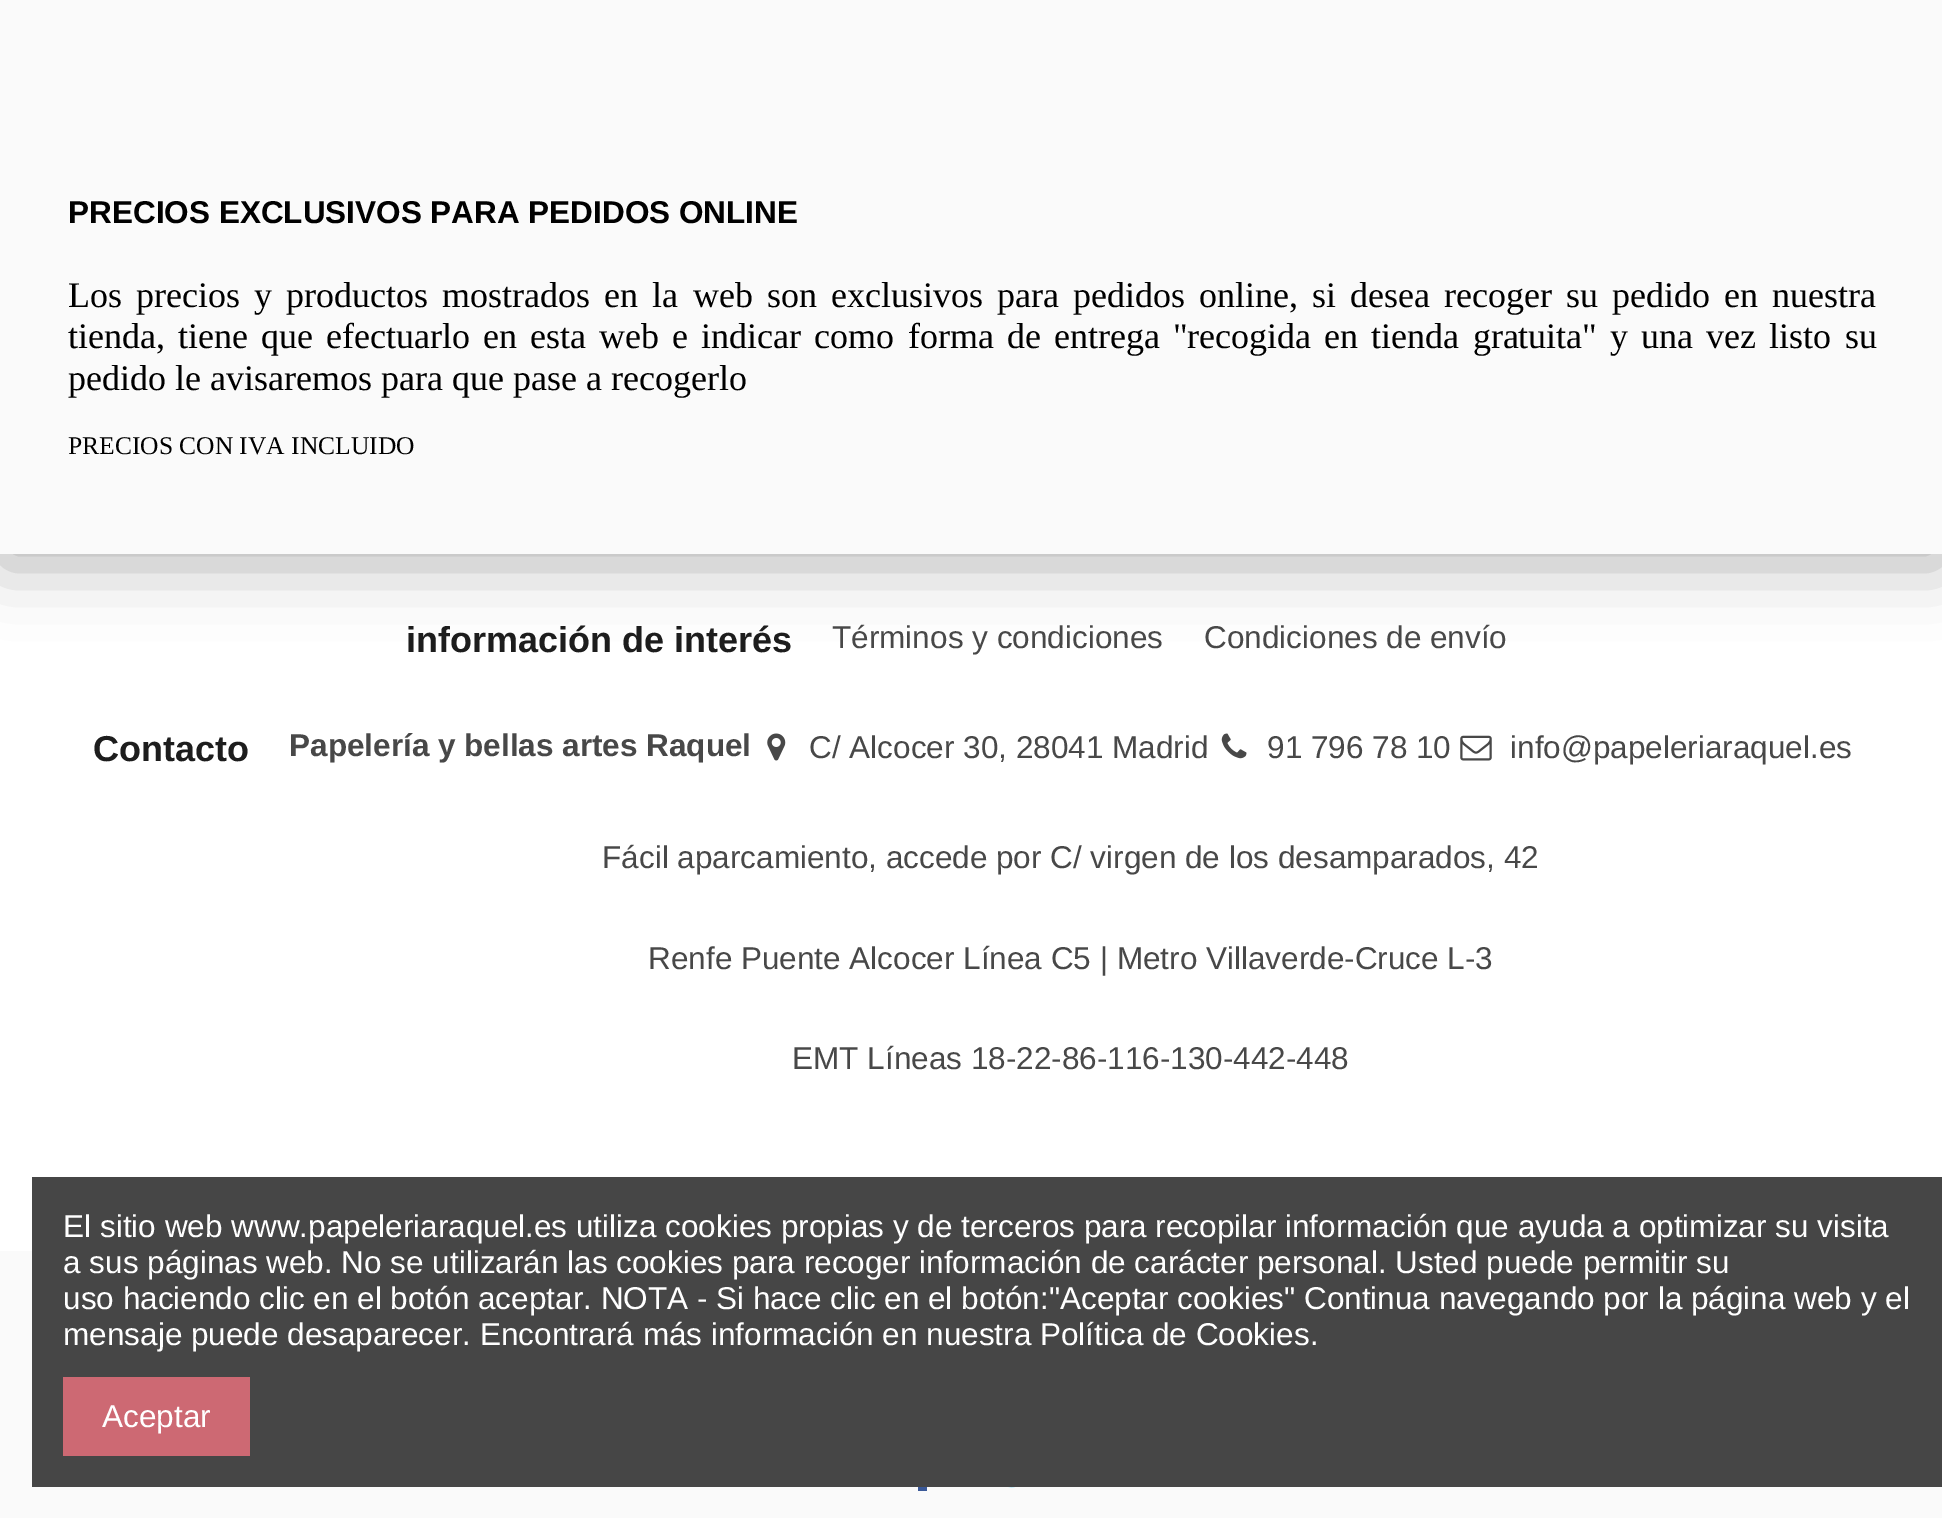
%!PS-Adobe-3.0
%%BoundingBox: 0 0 1942 1518
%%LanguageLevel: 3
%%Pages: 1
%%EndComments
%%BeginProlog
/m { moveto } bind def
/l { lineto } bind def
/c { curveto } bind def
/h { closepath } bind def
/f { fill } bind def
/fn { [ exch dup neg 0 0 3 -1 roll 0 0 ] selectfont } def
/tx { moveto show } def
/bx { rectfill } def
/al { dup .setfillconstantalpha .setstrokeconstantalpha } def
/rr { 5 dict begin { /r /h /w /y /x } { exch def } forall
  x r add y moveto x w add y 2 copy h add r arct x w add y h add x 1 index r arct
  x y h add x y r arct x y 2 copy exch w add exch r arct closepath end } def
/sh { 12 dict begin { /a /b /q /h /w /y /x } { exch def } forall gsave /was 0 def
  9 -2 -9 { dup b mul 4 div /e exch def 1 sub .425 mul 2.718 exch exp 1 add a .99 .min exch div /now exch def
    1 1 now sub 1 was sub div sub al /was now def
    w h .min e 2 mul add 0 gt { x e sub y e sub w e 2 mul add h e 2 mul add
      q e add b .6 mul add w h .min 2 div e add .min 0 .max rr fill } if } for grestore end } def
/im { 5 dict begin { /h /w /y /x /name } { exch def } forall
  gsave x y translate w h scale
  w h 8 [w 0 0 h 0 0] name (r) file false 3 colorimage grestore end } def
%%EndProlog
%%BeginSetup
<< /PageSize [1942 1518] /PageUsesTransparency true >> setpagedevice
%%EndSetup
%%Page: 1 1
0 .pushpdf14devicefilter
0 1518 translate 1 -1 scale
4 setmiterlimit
1 setgray
0 0 1942 1518 bx
0 setgray
0 -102 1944 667 0 34 0.3 sh
0.98 setgray
0 0 1942 554 bx
/LiberationSans-Bold 31.5 fn
0 setgray
(PRECIOS EXCLUSIVOS PARA PEDIDOS ONLINE) 68 223 tx
/LiberationSerif-Regular 36 fn
68 307 m 5.1 0 32 (Los precios y productos mostrados en la web son exclusivos para pedidos online, si desea recoger su pedido en nuestra) widthshow
68 348 m 4.1 0 32 (tienda, tiene que efectuarlo en esta web e indicar como forma de entrega "recogida en tienda gratuita" y una vez listo su) widthshow
(pedido le avisaremos para que pase a recogerlo) 68 390 tx
/LiberationSerif-Regular 25.5 fn
(PRECIOS CON IVA INCLUIDO) 68 454 tx
/LiberationSans-Bold 36 fn
0.114 setgray
(información de interés) 406 652 tx
/LiberationSans-Regular 31.5 fn
0.282 setgray
(Términos y condiciones) 832 648 tx
(Condiciones de envío) 1204 648 tx
/LiberationSans-Bold 36 fn
0.114 setgray
(Contacto) 93 761 tx
/LiberationSans-Bold 31.5 fn
0.282 setgray
(Papelería y bellas artes Raquel) 289 756 tx
(image0.raw) 767 733 19 28 im
/LiberationSans-Regular 31.5 fn
(C/ Alcocer 30, 28041 Madrid) 809 758 tx
(image1.raw) 1221 733 26 26 im
(91 796 78 10) 1267 758 tx
(image2.raw) 1460 735 32 26 im
(info@papeleriaraquel.es) 1510 758 tx
(Fácil aparcamiento, accede por C/ virgen de los desamparados, 42) 602 868 tx
(Renfe Puente Alcocer Línea C5 | Metro Villaverde-Cruce L-3) 648 969 tx
(EMT Líneas 18-22-86-116-130-442-448) 792 1069 tx
0.98 setgray
0 1251 1942 267 bx
0.231 0.349 0.596 setrgbcolor
937 1439 m 937 1448 l 927 1448 927 1448 927 1458 c 937 1458 l 935 1467 l 927 1467 l 927 1491 l 918 1491 l 918 1467 l 910 1467 l 910 1458 l 918 1458 l 918 1449 l 919 1439 929 1438 937 1439 c h f
(image3.raw) 1008 1487 7 1 im
0.275 setgray
32 1177 1910 310 bx
1 setgray
(El sitio web www.papeleriaraquel.es utiliza cookies propias y de terceros para recopilar información que ayuda a optimizar su visita) 63 1237 tx
(a sus páginas web. No se utilizarán las cookies para recoger información de carácter personal. Usted puede permitir su) 63 1273 tx
(uso haciendo clic en el botón aceptar. NOTA - Si hace clic en el botón:"Aceptar cookies" Continua navegando por la página web y el) 63 1309 tx
(mensaje puede desaparecer. Encontrará más información en nuestra Política de Cookies.) 63 1345 tx
0.804 0.412 0.451 setrgbcolor
63 1377 187 79 bx
1 setgray
(Aceptar) 102 1427 tx
.poppdf14devicefilter showpage
%%EOF
